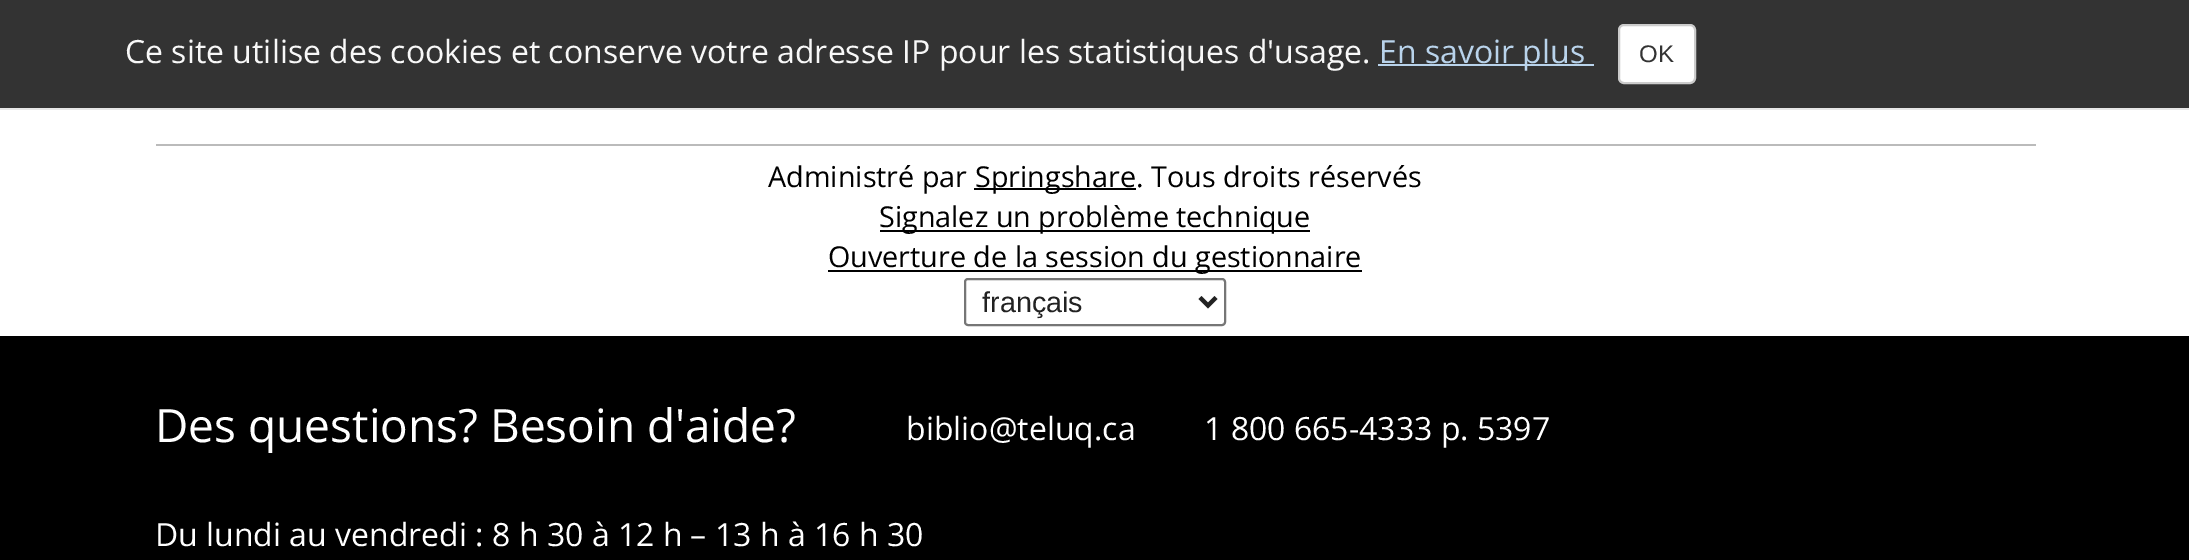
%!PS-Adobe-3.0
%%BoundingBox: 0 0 2189 560
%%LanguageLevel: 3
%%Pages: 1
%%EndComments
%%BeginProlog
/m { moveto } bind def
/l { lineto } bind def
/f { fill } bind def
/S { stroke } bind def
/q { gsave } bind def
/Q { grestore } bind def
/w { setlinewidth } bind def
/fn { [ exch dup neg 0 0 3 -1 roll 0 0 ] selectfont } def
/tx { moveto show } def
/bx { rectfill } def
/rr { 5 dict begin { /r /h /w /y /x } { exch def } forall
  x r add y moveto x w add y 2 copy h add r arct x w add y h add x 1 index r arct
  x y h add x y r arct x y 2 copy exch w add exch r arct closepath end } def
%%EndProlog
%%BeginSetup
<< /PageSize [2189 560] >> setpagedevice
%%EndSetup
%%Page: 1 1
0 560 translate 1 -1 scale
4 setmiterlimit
1 setgray
0 0 2189 560 bx
0.2 setgray
0 0 2189 108 bx
0.906 setgray
0 108 2189 2 bx
/OpenSans-Regular 32 fn
0.973 setgray
(Ce site utilise des cookies et conserve votre adresse IP pour les statistiques d'usage.) 125 63 tx
0.725 0.827 0.922 setrgbcolor
1378 64 216 2 bx
(En savoir plus) 1379 63 tx
1 setgray
1619 25 76 58 5 rr q f Q
0.8 setgray
2 w
S
/LiberationSans-Regular 24 fn
0.2 setgray
(OK) 1639 62 tx
0.733 setgray
156 144 1880 2 bx
/OpenSans-Regular 28.75 fn
0 setgray
(Administré par) 768 187 tx
974 188 162 2 bx
(Springshare. Tous droits réservés) 975 187 tx
880 230 430 2 bx
(Signalez un problème technique) 879 227 tx
828 270 534 2 bx
(Ouverture de la session du gestionnaire) 828 267 tx
0.463 setgray
965 279 260 46 3 rr S
0.133 setgray
4 w
1200 297.5 m 1208 305.5 l 1216 297.5 l S
/LiberationSans-Regular 28.75 fn
(français) 982 312 tx
0 setgray
0 336 2189 224 bx
/OpenSans-Regular 46 fn
1 setgray
(Des questions? Besoin d'aide?) 155 442 tx
/OpenSans-Regular 32 fn
(biblio@teluq.ca) 906 440 tx
(1 800 665-4333 p. 5397) 1204 440 tx
(Du lundi au vendredi : 8 h 30 à 12 h – 13 h à 16 h 30) 155 546 tx
showpage
%%EOF
